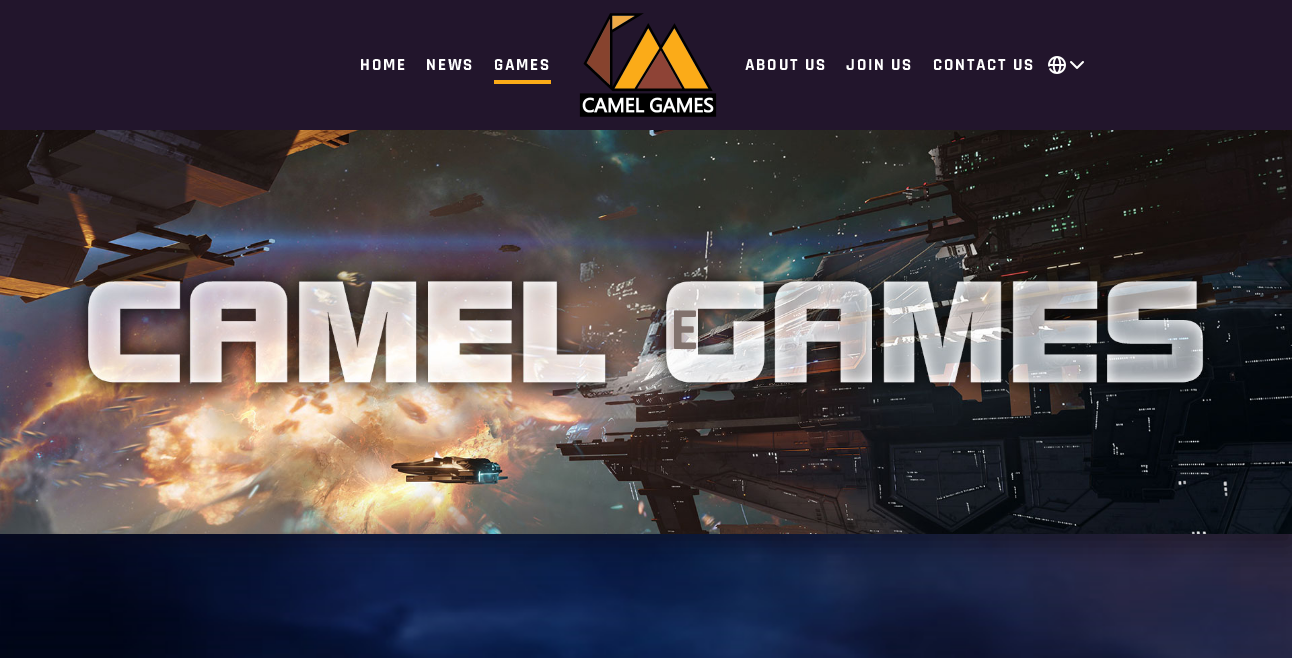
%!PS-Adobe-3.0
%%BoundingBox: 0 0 1292 658
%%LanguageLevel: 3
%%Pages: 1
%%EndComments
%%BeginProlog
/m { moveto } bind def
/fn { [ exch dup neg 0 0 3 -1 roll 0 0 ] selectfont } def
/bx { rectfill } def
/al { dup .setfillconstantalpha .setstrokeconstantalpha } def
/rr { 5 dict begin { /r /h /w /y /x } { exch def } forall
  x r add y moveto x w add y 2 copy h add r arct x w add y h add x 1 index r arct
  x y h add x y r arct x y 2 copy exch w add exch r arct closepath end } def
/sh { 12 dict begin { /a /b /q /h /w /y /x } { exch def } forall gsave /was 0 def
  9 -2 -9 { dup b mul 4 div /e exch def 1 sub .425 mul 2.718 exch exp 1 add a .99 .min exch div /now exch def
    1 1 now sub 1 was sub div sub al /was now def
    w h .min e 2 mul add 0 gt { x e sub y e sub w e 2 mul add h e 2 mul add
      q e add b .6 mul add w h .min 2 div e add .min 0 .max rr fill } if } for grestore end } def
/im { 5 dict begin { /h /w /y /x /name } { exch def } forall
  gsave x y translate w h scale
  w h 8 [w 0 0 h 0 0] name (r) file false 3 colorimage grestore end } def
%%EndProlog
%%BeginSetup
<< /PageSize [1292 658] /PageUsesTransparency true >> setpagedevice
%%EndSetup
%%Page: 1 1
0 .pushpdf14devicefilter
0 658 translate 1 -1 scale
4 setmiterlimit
1 setgray
0 0 1292 658 bx
(image3.raw) 0 534 1292 124 im
0.055 0.031 0.071 setrgbcolor
0 140 1292 404 0 13.5 0.5 sh
0.133 0.082 0.173 setrgbcolor
0 0 1292 130 bx
/Rajdhani-Bold 17 fn
1 setgray
360 70 m 1.75 0 (HOME) ashow
426 70 m 1.75 0 (NEWS) ashow
494 70 m 1.75 0 (GAMES) ashow
0.984 0.671 0.094 setrgbcolor
494 80 57 4 bx
(image0.raw) 579 13 138 104 im
1 setgray
745 70 m 1.75 0 (ABOUT US) ashow
846 70 m 1.75 0 (JOIN US) ashow
933 70 m 1.75 0 (CONTACT US) ashow
(image1.raw) 1048 56 18 18 im
(image2.raw) 1070 61 14 8 im
(image4.raw) 0 130 1292 404 im
/Rajdhani-Bold 60 fn
0.506 0.447 0.427 setrgbcolor
670 349 m -1 0 (E) ashow
.poppdf14devicefilter showpage
%%EOF
